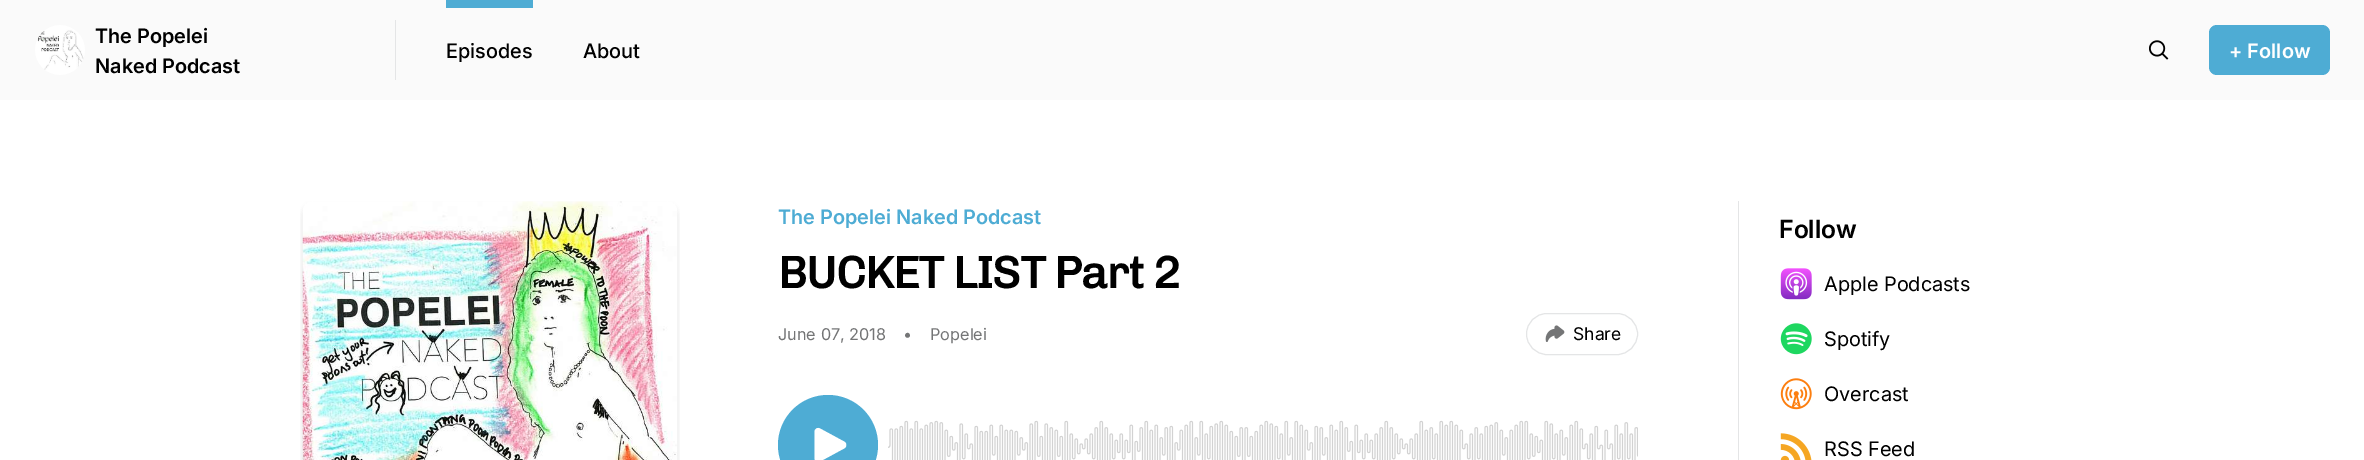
%!PS-Adobe-3.0
%%BoundingBox: 0 0 2364 460
%%LanguageLevel: 3
%%Pages: 1
%%EndComments
%%BeginProlog
/m { moveto } bind def
/l { lineto } bind def
/c { curveto } bind def
/h { closepath } bind def
/f { fill } bind def
/S { stroke } bind def
/fn { [ exch dup neg 0 0 3 -1 roll 0 0 ] selectfont } def
/tx { moveto show } def
/bx { rectfill } def
/ci { newpath 0 360 arc closepath } def
/rr { 5 dict begin { /r /h /w /y /x } { exch def } forall
  x r add y moveto x w add y 2 copy h add r arct x w add y h add x 1 index r arct
  x y h add x y r arct x y 2 copy exch w add exch r arct closepath end } def
/im { 5 dict begin { /h /w /y /x /name } { exch def } forall
  gsave x y translate w h scale
  w h 8 [w 0 0 h 0 0] name (r) file false 3 colorimage grestore end } def
%%EndProlog
%%BeginSetup
<< /PageSize [2364 460] >> setpagedevice
%%EndSetup
%%Page: 1 1
0 460 translate 1 -1 scale
4 setmiterlimit
1 setgray
0 0 2364 460 bx
0.98 setgray
0 0 2364 100 bx
0.894 0.898 0.902 setrgbcolor
395 20 1 60 bx
(image0.raw) 35 25 50 50 im
/Inter-SemiBold 20 fn
0 setgray
(The Popelei) 95 43 tx
(Naked Podcast) 95 73 tx
0.306 0.675 0.831 setrgbcolor
446 0 87 8 bx
/Inter-Medium 20 fn
0 setgray
(Episodes) 446 58 tx
(About) 583 58 tx
(image1.raw) 2149 40 20 20 im
0.306 0.675 0.831 setrgbcolor
2209 25 121 50 8 rr f
/Inter-SemiBold 20 fn
1 setgray
(+ Follow) 2229 58 tx
(image2.raw) 300 201 380 259 im
0.306 0.675 0.831 setrgbcolor
(The Popelei Naked Podcast) 778 224 tx
/Chivo-Bold 45 fn
0 setgray
778 288 m -1.1 0 (BUCKET LIST Part 2) ashow
/Inter-Regular 16.25 fn
0.455 0.459 0.463 setrgbcolor
(June 07, 2018) 778 340 tx
(•) 903 340 tx
(Popelei) 930 340 tx
0.894 0.898 0.902 setrgbcolor
1526.5 313.5 111 41 20.5 rr S
(image3.raw) 1545 325 20 17 im
/Inter-Regular 17.5 fn
0 setgray
(Share) 1573 340 tx
0.306 0.675 0.831 setrgbcolor
828 445 50 ci f
1 setgray
814.5 432 m 814.5 429 817.5 427 820 428.5 c 844 441.5 l 847 443 847 447 844 448.5 c 820 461.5 l 817.5 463 814.5 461 814.5 458 c h eofill
(image4.raw) 888 420 750 40 im
0.894 0.898 0.902 setrgbcolor
1738 201 1 259 bx
/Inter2-SemiBold 25 fn
0 setgray
(Follow) 1779 238 tx
(image5.raw) 1780 268 32 32 im
/Inter2-Regular 20 fn
(Apple Podcasts) 1824 291 tx
(image6.raw) 1780 323 32 32 im
(Spotify) 1824 346 tx
(image7.raw) 1780 378 32 32 im
(Overcast) 1824 401 tx
(image8.raw) 1780 433 32 27 im
(RSS Feed) 1824 456 tx
showpage
%%EOF
